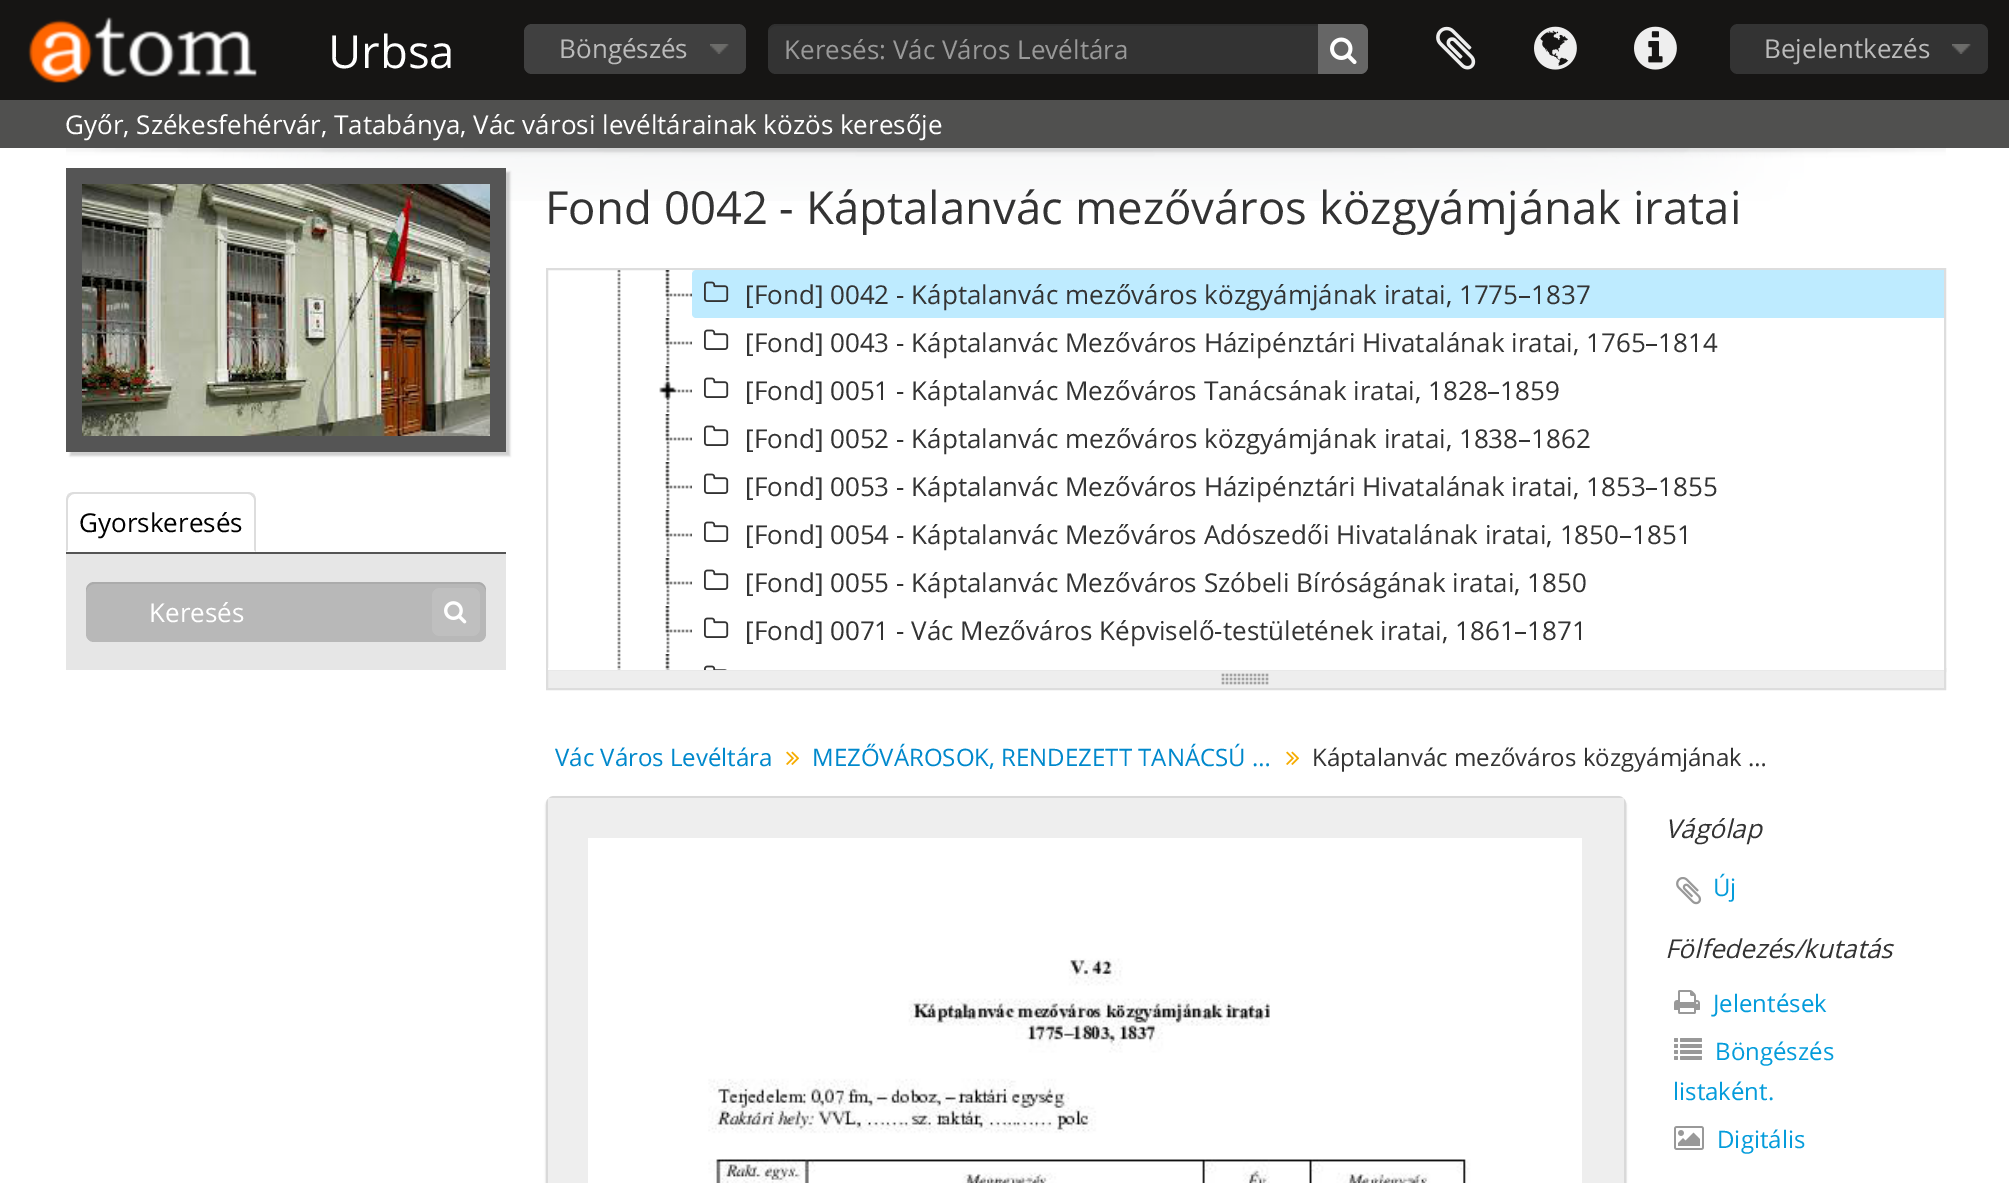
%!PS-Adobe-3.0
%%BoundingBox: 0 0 2009 1183
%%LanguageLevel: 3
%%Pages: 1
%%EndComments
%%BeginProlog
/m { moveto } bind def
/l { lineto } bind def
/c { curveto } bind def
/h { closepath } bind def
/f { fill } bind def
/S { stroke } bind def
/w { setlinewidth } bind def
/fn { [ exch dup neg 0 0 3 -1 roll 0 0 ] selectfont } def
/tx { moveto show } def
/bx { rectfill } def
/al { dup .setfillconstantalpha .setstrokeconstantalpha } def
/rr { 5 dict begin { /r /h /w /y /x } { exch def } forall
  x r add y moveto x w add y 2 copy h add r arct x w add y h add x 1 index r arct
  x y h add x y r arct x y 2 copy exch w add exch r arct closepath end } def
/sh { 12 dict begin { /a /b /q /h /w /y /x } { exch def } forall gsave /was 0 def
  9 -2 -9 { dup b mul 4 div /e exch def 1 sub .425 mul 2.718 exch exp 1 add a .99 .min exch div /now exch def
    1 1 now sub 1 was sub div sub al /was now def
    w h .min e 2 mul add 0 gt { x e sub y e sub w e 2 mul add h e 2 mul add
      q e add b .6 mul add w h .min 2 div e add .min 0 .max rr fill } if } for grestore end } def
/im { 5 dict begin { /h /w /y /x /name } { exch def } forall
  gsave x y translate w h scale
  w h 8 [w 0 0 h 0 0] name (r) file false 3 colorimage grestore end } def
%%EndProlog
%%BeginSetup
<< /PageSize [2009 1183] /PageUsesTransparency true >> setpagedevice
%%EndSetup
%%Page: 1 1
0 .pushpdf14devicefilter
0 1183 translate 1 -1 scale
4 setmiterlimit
1 setgray
0 0 2009 1183 bx
0.086 0.082 0.078 setrgbcolor
0 0 2009 100 bx
(image0.raw) 28 17 229 66 im
/OpenSans-Regular 45.5 fn
1 setgray
(Urbsa) 328 68 tx
0.251 setgray
524 24 222 50 8 rr f
(image1.raw) 710 44 19 10 im
/OpenSans-Regular 26 fn
0.733 setgray
(Böngészés) 559 58 tx
0.2 setgray
768 24 600 50 8 rr f
0.07 al
0 setgray
776 26 m 1360 26 l 1364 26 1368 30 1368 34 c 1368 29 1366 24 1360 24 c 776 24 l 770 24 768 29 768 34 c 768 30 772 26 776 26 c h f
1 al
0.6 setgray
(Keresés: Vác Város Levéltára) 784 59 tx
0.4 setgray
1318 24 m 1360 24 l 1364.5 24 1368 27.5 1368 32 c 1368 66 l 1368 70.5 1364.5 74 1360 74 c 1318 74 l h f
(image2.raw) 1330 37 27 28 im
(image3.raw) 1436 26 40 44 im
(image4.raw) 1534 26 43 44 im
(image5.raw) 1634 26 43 44 im
0.2 setgray
1730 24 258 50 8 rr f
(image6.raw) 1952 44 19 10 im
0.733 setgray
(Bejelentkezés) 1764 58 tx
0.314 0.314 0.31 setrgbcolor
0 100 2009 48 bx
1 setgray
(Győr, Székesfehérvár, Tatabánya, Vác városi levéltárainak közös keresője) 65 134 tx
(image7.raw) 66 148 1880 53 im
0.098 setgray
70 172 440 284 0 1 0.2 sh
0.333 setgray
66 168 440 284 bx
(image8.raw) 82 184 408 252 im
66 552 440 2 bx
0.867 setgray
74 492 m 72 492 70 493 68 494 c 70 496 l 71 495 72 494 74 494 c 248 494 l 250 494 251 495 252 496 c 254 494 l 252 493 250 492 248 492 c h f
256 552 m 256 500 l 256 498 255 496 254 494 c 252 496 l 253 497 254 498 254 500 c 254 550 l h f
66 552 m 68 550 l 68 500 l 68 498 69 497 70 496 c 68 494 l 67 496 66 498 66 500 c h f
0 setgray
(Gyorskeresés) 79 532 tx
0.902 setgray
66 554 440 116 bx
0.722 setgray
86 582 400 60 8 rr f
0.07 al
0 setgray
94 584 m 478 584 l 482 584 486 588 486 592 c 486 590 l 486 586 482 582 478 582 c 94 582 l 90 582 86 586 86 590 c 86 592 l 86 588 90 584 94 584 c h f
1 al
1 setgray
(Keresés) 149 622 tx
0.749 setgray
432 588 48 48 8 rr f
(image9.raw) 444 601 23 23 im
/OpenSans-Regular 45.5 fn
0.2 setgray
(Fond 0042 - Káptalanvác mezőváros közgyámjának iratai) 545 224 tx
0.867 setgray
2 w
547 269 1398 402 rectstroke
0.933 setgray
548 670 1396 18 bx
(image19.raw) 1221 673 48 12 im
0.867 setgray
547 669 1398 20 rectstroke
1 setgray
548 668 1396 2 bx
(image10.raw) 617 270 4 400 im
(image11.raw) 666 270 4 47 im
(image12.raw) 665 270 27 27 im
0.745 0.922 1 setrgbcolor
696 270 m 1944 270 l 1944 318 l 696 318 l 694 318 692 316 692 314 c 692 274 l 692 272 694 270 696 270 c h f
(image13.raw) 704 281 25 21 im
/OpenSans-Regular 26 fn
0.2 setgray
([Fond] 0042 - Káptalanvác mezőváros közgyámjának iratai, 1775–1837) 745 304 tx
(image11.raw) 666 318 4 47 im
(image12.raw) 665 318 27 27 im
(image14.raw) 704 329 25 21 im
([Fond] 0043 - Káptalanvác Mezőváros Házipénztári Hivatalának iratai, 1765–1814) 745 352 tx
(image11.raw) 666 366 4 47 im
(image15.raw) 659 366 33 33 im
(image14.raw) 704 377 25 21 im
([Fond] 0051 - Káptalanvác Mezőváros Tanácsának iratai, 1828–1859) 745 400 tx
(image11.raw) 666 414 4 47 im
(image12.raw) 665 414 27 27 im
(image14.raw) 704 425 25 21 im
([Fond] 0052 - Káptalanvác mezőváros közgyámjának iratai, 1838–1862) 745 448 tx
(image11.raw) 666 462 4 47 im
(image12.raw) 665 462 27 27 im
(image14.raw) 704 473 25 21 im
([Fond] 0053 - Káptalanvác Mezőváros Házipénztári Hivatalának iratai, 1853–1855) 745 496 tx
(image11.raw) 666 510 4 47 im
(image12.raw) 665 510 27 27 im
(image14.raw) 704 521 25 21 im
([Fond] 0054 - Káptalanvác Mezőváros Adószedői Hivatalának iratai, 1850–1851) 745 544 tx
(image11.raw) 666 558 4 47 im
(image12.raw) 665 558 27 27 im
(image14.raw) 704 569 25 21 im
([Fond] 0055 - Káptalanvác Mezőváros Szóbeli Bíróságának iratai, 1850) 745 592 tx
(image11.raw) 666 606 4 47 im
(image12.raw) 665 606 27 27 im
(image14.raw) 704 617 25 21 im
([Fond] 0071 - Vác Mezőváros Képviselő-testületének iratai, 1861–1871) 745 640 tx
(image16.raw) 666 654 4 16 im
(image17.raw) 665 654 5 16 im
(image18.raw) 704 665 23 5 im
/OpenSans-Regular 24 fn
0 0.533 0.8 setrgbcolor
(Vác Város Levéltára) 555 766 tx
(image20.raw) 786 751 14 14 im
(MEZŐVÁROSOK, RENDEZETT TANÁCSÚ …) 812 766 tx
(image20.raw) 1286 751 14 14 im
0.2 setgray
(Káptalanvác mezőváros közgyámjának …) 1312 766 tx
0 setgray
546 798 1080 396 8 1 0.2 sh
0.851 setgray
547 797 1078 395 7 rr S
0.933 setgray
548 798 1076 385 bx
(image21.raw) 588 838 994 345 im
/OpenSans-Italic 26 fn
0.2 setgray
(Vágólap) 1665 838 tx
(image22.raw) 1676 877 26 28 im
/OpenSans-Regular 24 fn
0.016 0.612 0.859 setrgbcolor
(Új) 1713 896 tx
/OpenSans-Italic 26 fn
0.2 setgray
(Fölfedezés/kutatás) 1665 958 tx
(image23.raw) 1674 990 26 24 im
/OpenSans-Regular 24 fn
0.016 0.612 0.859 setrgbcolor
(Jelentések) 1713 1012 tx
(image24.raw) 1674 1038 28 22 im
(Böngészés) 1715 1060 tx
(listaként.) 1673 1100 tx
(image25.raw) 1674 1126 30 24 im
(Digitális) 1717 1148 tx
.poppdf14devicefilter showpage
%%EOF
